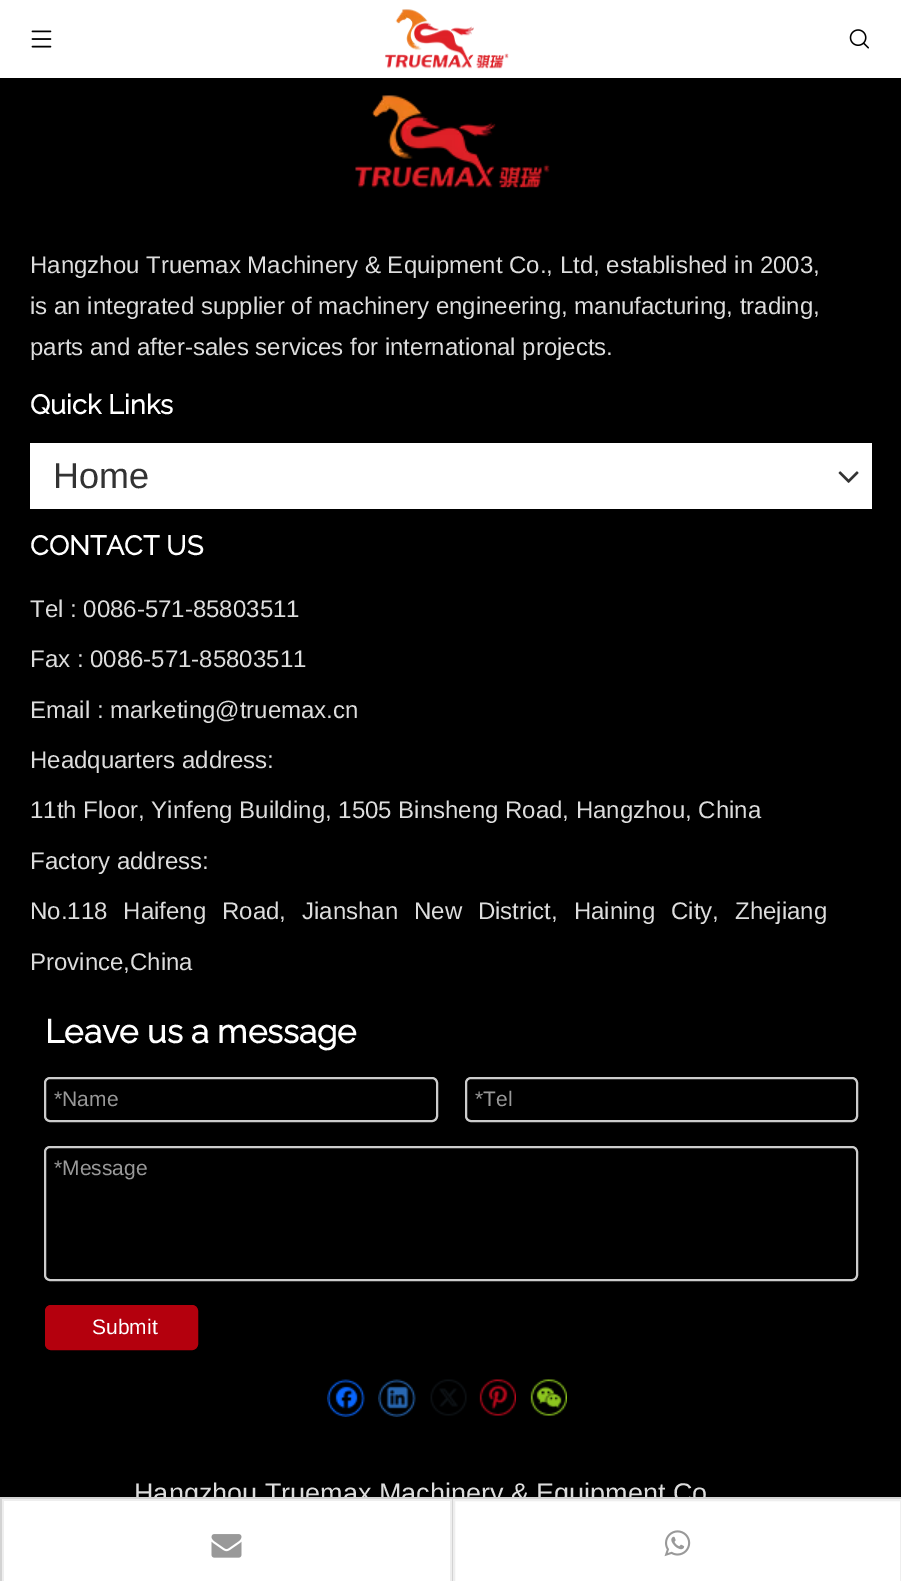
%!PS-Adobe-3.0
%%BoundingBox: 0 0 901 1581
%%LanguageLevel: 3
%%Pages: 1
%%EndComments
%%BeginProlog
/m { moveto } bind def
/l { lineto } bind def
/h { closepath } bind def
/f { fill } bind def
/S { stroke } bind def
/q { gsave } bind def
/Q { grestore } bind def
/w { setlinewidth } bind def
/fn { [ exch dup neg 0 0 3 -1 roll 0 0 ] selectfont } def
/tx { moveto show } def
/bx { rectfill } def
/rr { 5 dict begin { /r /h /w /y /x } { exch def } forall
  x r add y moveto x w add y 2 copy h add r arct x w add y h add x 1 index r arct
  x y h add x y r arct x y 2 copy exch w add exch r arct closepath end } def
/im { 5 dict begin { /h /w /y /x /name } { exch def } forall
  gsave x y translate w h scale
  w h 8 [w 0 0 h 0 0] name (r) file false 3 colorimage grestore end } def
%%EndProlog
%%BeginSetup
<< /PageSize [901 1581] >> setpagedevice
%%EndSetup
%%Page: 1 1
0 1581 translate 1 -1 scale
4 setmiterlimit
0 setgray
0 0 901 1581 bx
1 setgray
0 0 901 78 bx
(image0.raw) 31 30 21 18 im
(image1.raw) 385 9 124 60 im
(image2.raw) 849 29 20 20 im
(image3.raw) 355 95 195 93 im
/LiberationSans-Regular 24 fn
0.867 setgray
(Hangzhou Truemax Machinery & Equipment Co., Ltd, established in 2003,) 30 273 tx
(is an integrated supplier of machinery engineering, manufacturing, trading,) 30 314 tx
(parts and after-sales services for international projects.) 30 355 tx
/Raleway-Bold 27 fn
1 setgray
(Quick Links) 30 414 tx
30 443 842 66 bx
/LiberationSans-Regular 36 fn
0.2 setgray
(Home) 53 488 tx
(image4.raw) 838 471 21 12 im
/Raleway-Bold 27 fn
1 setgray
(CONTACT US) 30 555 tx
/LiberationSans-Regular 24 fn
0.867 setgray
(Tel : 0086-571-85803511) 30 617 tx
(Fax : 0086-571-85803511) 30 667 tx
(Email : marketing@truemax.cn) 30 718 tx
(Headquarters address:) 30 768 tx
(11th Floor, Yinfeng Building, 1505 Binsheng Road, Hangzhou, China) 30 818 tx
(Factory address:) 30 869 tx
30 919 m 9.25 0 32 (No.118 Haifeng Road, Jianshan New District, Haining City, Zhejiang) widthshow
(Province,China) 30 970 tx
/LiberationSans-Regular 27 fn
(Hangzhou Truemax Machinery & Equipment Co) 134 1502 tx
0.827 setgray
0 1497 901 2 bx
0 1499 2 82 bx
1 setgray
4 1501 446 80 bx
0.933 setgray
2 1499 450 2 bx
450 1499 2 82 bx
2 1499 2 82 bx
(image5.raw) 211 1534 31 24 im
0.827 setgray
452 1499 1 82 bx
1 setgray
454 1500 m 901 1500 l 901 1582 l 454 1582 l h q f Q
0.933 setgray
2 w
S
(image6.raw) 664 1530 27 27 im
/Raleway-Bold 33 fn
1 setgray
(Leave us a message) 45 1043 tx
0.8 setgray
45 1078 392 43 5 rr S
/LiberationSans-Regular 21 fn
0.6 setgray
(*Name) 54 1106 tx
0.8 setgray
466 1078 391 43 5 rr S
0.6 setgray
(*Tel) 475 1106 tx
0.8 setgray
45 1147 812 133 5 rr S
0.6 setgray
(*Message) 54 1175 tx
0.706 0 0.051 setrgbcolor
46 1306 151 43 5 rr q f Q
S
1 setgray
(Submit) 92 1334 tx
(image7.raw) 327 1379 38 38 im
(image8.raw) 378 1379 38 38 im
(image9.raw) 430 1379 37 37 im
(image10.raw) 479 1379 37 37 im
(image11.raw) 530 1379 37 37 im
showpage
%%EOF
